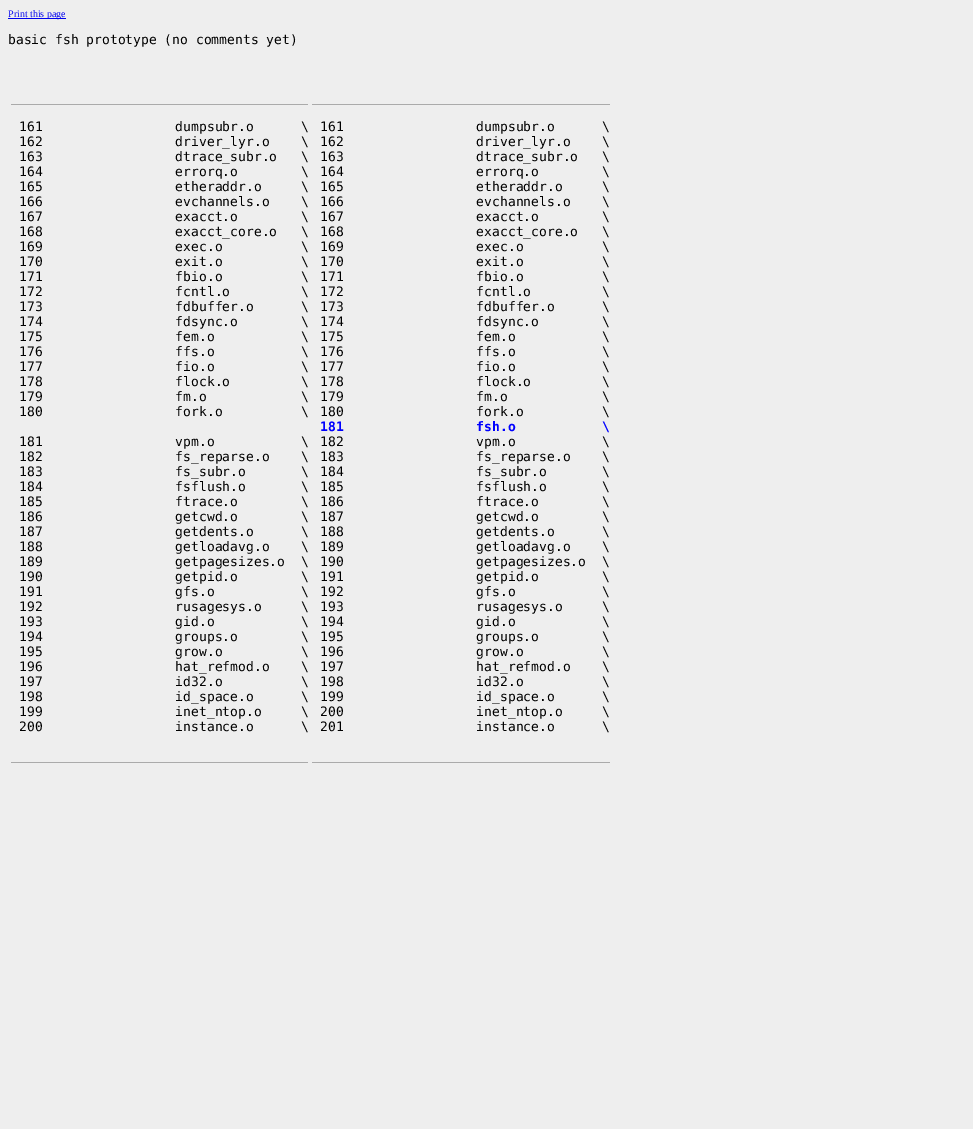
%!PS
<< /PageSize [973 1129] >> setpagedevice
/rgb { 3 { 255 div 3 1 roll } repeat setrgbcolor } def
/font { [ exch dup neg 0 0 3 -1 roll 0 0 ] selectfont } def
/text { moveto show } def
0 1129 translate 1 -1 scale
4 setmiterlimit
238 238 238 rgb
0 0 973 1129 rectfill
0 0 238 rgb
8 18 58 1 rectfill
170 170 170 rgb
11 104 297 1 rectfill
11 762 297 1 rectfill
312 104 298 1 rectfill
312 762 298 1 rectfill
/LiberationSerif-Regular 10 font
0 0 238 rgb
(Print this page) 8 17 text
/DejaVuSansMono-Regular 13 font
0 0 0 rgb
(basic fsh prototype \(no comments yet\)) 8 44 text
(161                 dumpsubr.o      \\) 19 131 text
(162                 driver_lyr.o    \\) 19 146 text
(163                 dtrace_subr.o   \\) 19 161 text
(164                 errorq.o        \\) 19 176 text
(165                 etheraddr.o     \\) 19 191 text
(166                 evchannels.o    \\) 19 206 text
(167                 exacct.o        \\) 19 221 text
(168                 exacct_core.o   \\) 19 236 text
(169                 exec.o          \\) 19 251 text
(170                 exit.o          \\) 19 266 text
(171                 fbio.o          \\) 19 281 text
(172                 fcntl.o         \\) 19 296 text
(173                 fdbuffer.o      \\) 19 311 text
(174                 fdsync.o        \\) 19 326 text
(175                 fem.o           \\) 19 341 text
(176                 ffs.o           \\) 19 356 text
(177                 fio.o           \\) 19 371 text
(178                 flock.o         \\) 19 386 text
(179                 fm.o            \\) 19 401 text
(180                 fork.o          \\) 19 416 text
(181                 vpm.o           \\) 19 446 text
(182                 fs_reparse.o    \\) 19 461 text
(183                 fs_subr.o       \\) 19 476 text
(184                 fsflush.o       \\) 19 491 text
(185                 ftrace.o        \\) 19 506 text
(186                 getcwd.o        \\) 19 521 text
(187                 getdents.o      \\) 19 536 text
(188                 getloadavg.o    \\) 19 551 text
(189                 getpagesizes.o  \\) 19 566 text
(190                 getpid.o        \\) 19 581 text
(191                 gfs.o           \\) 19 596 text
(192                 rusagesys.o     \\) 19 611 text
(193                 gid.o           \\) 19 626 text
(194                 groups.o        \\) 19 641 text
(195                 grow.o          \\) 19 656 text
(196                 hat_refmod.o    \\) 19 671 text
(197                 id32.o          \\) 19 686 text
(198                 id_space.o      \\) 19 701 text
(199                 inet_ntop.o     \\) 19 716 text
(200                 instance.o      \\) 19 731 text
(161                 dumpsubr.o      \\) 320 131 text
(162                 driver_lyr.o    \\) 320 146 text
(163                 dtrace_subr.o   \\) 320 161 text
(164                 errorq.o        \\) 320 176 text
(165                 etheraddr.o     \\) 320 191 text
(166                 evchannels.o    \\) 320 206 text
(167                 exacct.o        \\) 320 221 text
(168                 exacct_core.o   \\) 320 236 text
(169                 exec.o          \\) 320 251 text
(170                 exit.o          \\) 320 266 text
(171                 fbio.o          \\) 320 281 text
(172                 fcntl.o         \\) 320 296 text
(173                 fdbuffer.o      \\) 320 311 text
(174                 fdsync.o        \\) 320 326 text
(175                 fem.o           \\) 320 341 text
(176                 ffs.o           \\) 320 356 text
(177                 fio.o           \\) 320 371 text
(178                 flock.o         \\) 320 386 text
(179                 fm.o            \\) 320 401 text
(180                 fork.o          \\) 320 416 text
/DejaVuSansMono-Bold 13 font
0 0 255 rgb
(181                 fsh.o           \\) 320 431 text
/DejaVuSansMono-Regular 13 font
0 0 0 rgb
(182                 vpm.o           \\) 320 446 text
(183                 fs_reparse.o    \\) 320 461 text
(184                 fs_subr.o       \\) 320 476 text
(185                 fsflush.o       \\) 320 491 text
(186                 ftrace.o        \\) 320 506 text
(187                 getcwd.o        \\) 320 521 text
(188                 getdents.o      \\) 320 536 text
(189                 getloadavg.o    \\) 320 551 text
(190                 getpagesizes.o  \\) 320 566 text
(191                 getpid.o        \\) 320 581 text
(192                 gfs.o           \\) 320 596 text
(193                 rusagesys.o     \\) 320 611 text
(194                 gid.o           \\) 320 626 text
(195                 groups.o        \\) 320 641 text
(196                 grow.o          \\) 320 656 text
(197                 hat_refmod.o    \\) 320 671 text
(198                 id32.o          \\) 320 686 text
(199                 id_space.o      \\) 320 701 text
(200                 inet_ntop.o     \\) 320 716 text
(201                 instance.o      \\) 320 731 text
showpage
